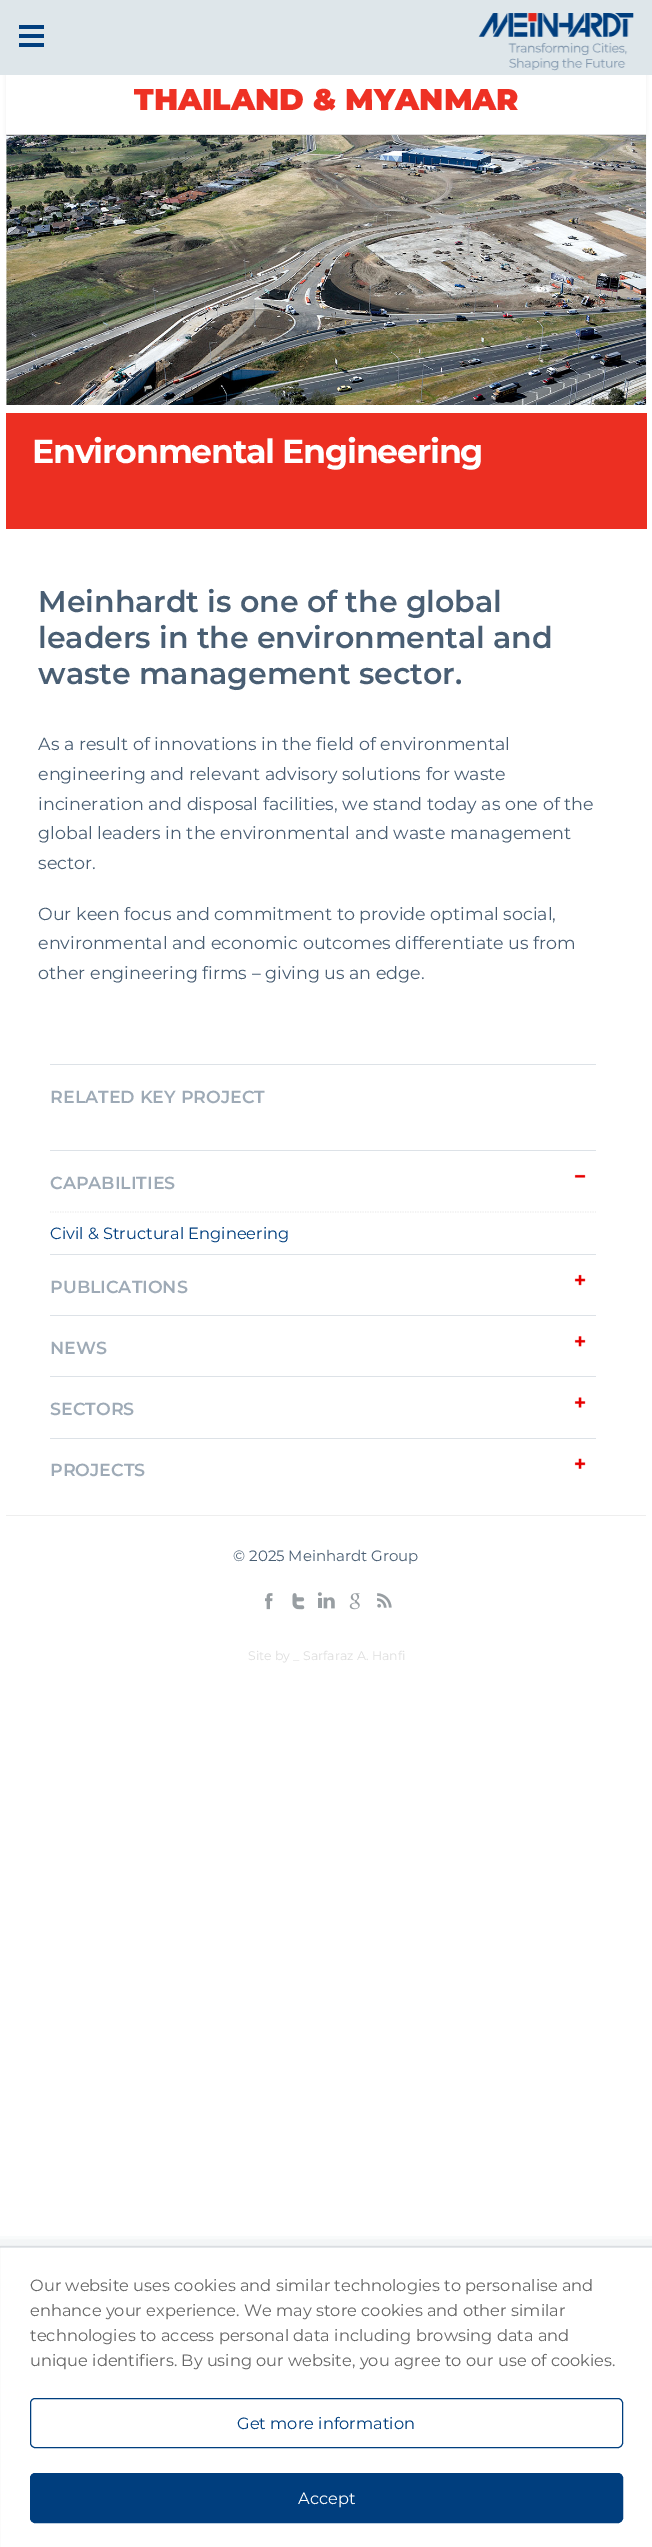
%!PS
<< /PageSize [652 2547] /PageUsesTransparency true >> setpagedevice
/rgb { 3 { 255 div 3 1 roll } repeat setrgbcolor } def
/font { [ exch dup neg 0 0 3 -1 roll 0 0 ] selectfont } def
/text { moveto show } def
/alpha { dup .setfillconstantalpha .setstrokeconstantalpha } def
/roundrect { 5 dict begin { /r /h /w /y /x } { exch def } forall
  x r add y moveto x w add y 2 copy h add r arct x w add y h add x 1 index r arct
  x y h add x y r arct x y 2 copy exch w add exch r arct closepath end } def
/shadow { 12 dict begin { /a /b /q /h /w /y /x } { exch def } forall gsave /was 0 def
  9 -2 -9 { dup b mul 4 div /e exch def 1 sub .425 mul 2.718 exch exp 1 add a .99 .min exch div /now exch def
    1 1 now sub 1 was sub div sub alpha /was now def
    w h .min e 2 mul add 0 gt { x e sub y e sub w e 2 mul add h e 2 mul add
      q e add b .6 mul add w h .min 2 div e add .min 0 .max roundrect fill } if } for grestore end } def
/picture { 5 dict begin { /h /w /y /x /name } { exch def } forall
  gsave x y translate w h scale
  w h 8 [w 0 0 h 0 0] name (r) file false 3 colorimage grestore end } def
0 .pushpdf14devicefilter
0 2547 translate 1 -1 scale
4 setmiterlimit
255 255 255 rgb
0 0 652 2547 rectfill
gsave
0 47 moveto 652 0 rlineto 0 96 rlineto -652 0 rlineto closepath 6 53 moveto 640 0 rlineto 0 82 rlineto -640 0 rlineto closepath eoclip newpath
238 238 238 rgb
6 54 640 82 0 2 1 shadow
grestore
222 230 234 rgb
0 0 652 75 rectfill
0 62 126 rgb
19 25 25 4 rectfill
19 34 25 4 rectfill
19 43 25 4 rectfill
221 221 221 rgb
6 134 640 1 rectfill
(img_01.rgb) 478 13 156 58 picture
(img_02.rgb) 6 135 641 270 picture
236 47 34 rgb
6 413 641 116 rectfill
221 226 231 rgb
50 1064 546 1 rectfill
(img_03.rgb) 574 1174 12 4 picture
50 1150 546 1 rectfill
238 238 238 rgb
1.2 setlinewidth
[1.25 1.25] 0 setdash
50 1212 moveto 546 0 rlineto stroke
(img_04.rgb) 574 1274 12 12 picture
221 226 231 rgb
50 1254 546 1 rectfill
(img_05.rgb) 574 1336 12 11 picture
50 1315 546 1 rectfill
(img_06.rgb) 574 1397 12 11 picture
50 1376 546 1 rectfill
(img_07.rgb) 574 1458 12 11 picture
50 1438 546 1 rectfill
238 238 238 rgb
6 1515 640 1 rectfill
(img_08.rgb) 265 1593 8 17 picture
(img_09.rgb) 292 1593 13 17 picture
(img_10.rgb) 317 1592 18 17 picture
(img_11.rgb) 349 1593 11 17 picture
(img_12.rgb) 377 1593 15 15 picture
gsave
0 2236 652 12 rectclip
36 47 66 rgb
-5 2255 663 285 0 12.5 0.31 shadow
grestore
0.08 alpha
36 47 66 rgb
1 setlinewidth
[] 0 setdash
-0.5 2246.5 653 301 rectstroke
1 alpha
0 62 126 rgb
30.5 2398.5 592 49 4.5 roundrect stroke
30.5 2473.5 592 49 4.5 roundrect gsave fill grestore
stroke
/Montserrat-Black 30 font
238 49 36 rgb
(THAILAND & MYANMAR) 134 110 text
/Montserrat-Bold 33.25 font
255 255 255 rgb
32 463 moveto -1.25 0 (Environmental Engineering) ashow
/Montserrat-SemiBold 30 font
73 94 115 rgb
(Meinhardt is one of the global) 38 612 text
(leaders in the environmental and) 38 648 text
(waste management sector.) 38 684 text
/Montserrat-Regular 17.5 font
(As a result of innovations in the field of environmental) 38 750 text
(engineering and relevant advisory solutions for waste) 38 780 text
(incineration and disposal facilities, we stand today as one of the) 38 810 text
(global leaders in the environmental and waste management) 38 839 text
(sector.) 38 869 text
(Our keen focus and commitment to provide optimal social,) 38 920 text
(environmental and economic outcomes differentiate us from) 38 949 text
(other engineering firms – giving us an edge.) 38 979 text
/Montserrat-SemiBold 17.5 font
158 170 182 rgb
(RELATED KEY PROJECT) 50 1103 text
(CAPABILITIES) 50 1189 text
/Montserrat-Regular 16.25 font
0 62 126 rgb
(Civil & Structural Engineering) 50 1239 text
/Montserrat-SemiBold 17.5 font
158 170 182 rgb
(PUBLICATIONS) 50 1293 text
(NEWS) 50 1354 text
(SECTORS) 50 1415 text
(PROJECTS) 50 1476 text
/Montserrat-Regular 15 font
73 94 115 rgb
(© 2025 Meinhardt Group) 233 1561 text
/Montserrat-Regular 12.5 font
221 221 221 rgb
(Site by _ Sarfaraz A. Hanfi) 248 1660 text
/Montserrat-Regular 16.25 font
102 102 102 rgb
(Our website uses cookies and similar technologies to personalise and) 30 2291 text
(enhance your experience. We may store cookies and other similar) 30 2316 text
(technologies to access personal data including browsing data and) 30 2341 text
(unique identifiers. By using our website, you agree to our use of cookies.) 30 2366 text
0 62 126 rgb
(Get more information) 237 2429 text
255 255 255 rgb
(Accept) 298 2504 text
.poppdf14devicefilter showpage
